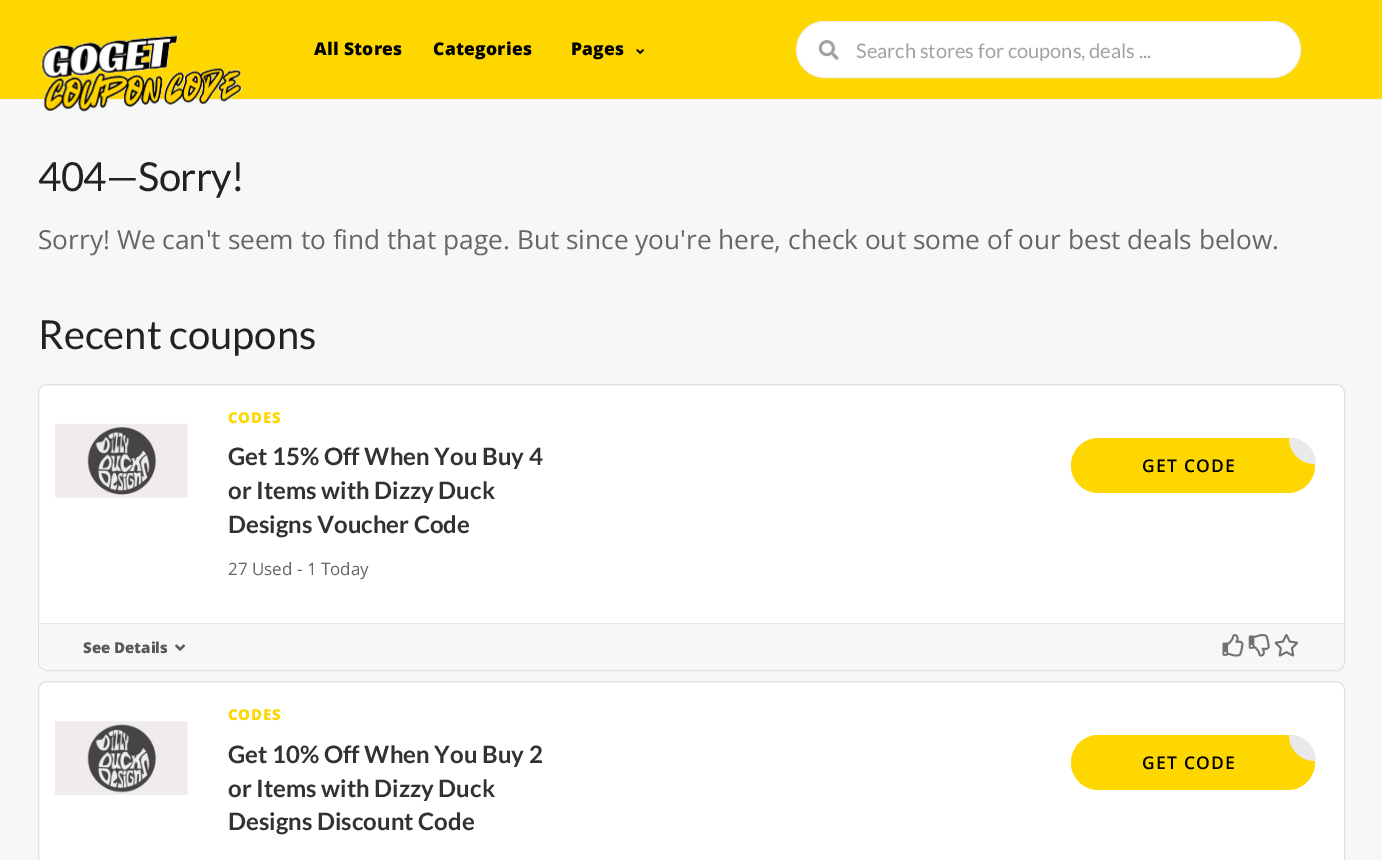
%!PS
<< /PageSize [1382 860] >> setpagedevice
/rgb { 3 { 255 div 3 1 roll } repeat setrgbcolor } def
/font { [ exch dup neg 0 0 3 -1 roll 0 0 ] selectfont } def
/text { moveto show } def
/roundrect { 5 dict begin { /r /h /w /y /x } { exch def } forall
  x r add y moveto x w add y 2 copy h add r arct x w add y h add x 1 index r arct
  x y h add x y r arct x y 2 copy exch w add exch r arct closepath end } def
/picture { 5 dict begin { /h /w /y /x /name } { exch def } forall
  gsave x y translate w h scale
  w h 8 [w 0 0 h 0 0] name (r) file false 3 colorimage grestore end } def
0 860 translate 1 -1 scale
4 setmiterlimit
247 247 247 rgb
0 0 1382 860 rectfill
254 215 0 rgb
0 0 1382 99 rectfill
242 242 242 rgb
0 99 1382 1 rectfill
(img_01.rgb) 41 35 201 77 picture
(img_02.rgb) 636 49 8 5 picture
255 255 255 rgb
796.5 21.5 504 56 28 roundrect gsave fill grestore
242 242 242 rgb
stroke
(img_03.rgb) 818 40 21 20 picture
255 255 255 rgb
38.5 384.5 1306 286 8.5 roundrect gsave fill grestore
224 224 224 rgb
stroke
(img_04.rgb) 55 423 133 75 picture
241 241 241 rgb
1290 438 moveto 14.5 0 26 11.5 26 26 rcurveto -14.5 0 -26 -11.5 -26 -26 rcurveto closepath fill
254 215 0 rgb
1071 438 244 55 27.5 roundrect fill
233 233 233 rgb
1289 438 moveto 14.5 0 26 11.5 26 26 rcurveto -14.5 0 -26 -11.5 -26 -26 rcurveto closepath fill
247 247 247 rgb
39 623 moveto 1305 0 rlineto 0 38 rlineto 0 5 -4 9 -9 9 rcurveto -1287 0 rlineto -5 0 -9 -4 -9 -9 rcurveto closepath fill
233 233 233 rgb
39 623 1305 1 rectfill
(img_05.rgb) 175 644 11 7 picture
(img_06.rgb) 1222 634 22 23 picture
(img_07.rgb) 1248 634 22 23 picture
(img_08.rgb) 1274 634 25 23 picture
255 255 255 rgb
38.5 681.5 1306 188 8.5 roundrect gsave fill grestore
224 224 224 rgb
stroke
(img_09.rgb) 55 721 133 74 picture
241 241 241 rgb
1290 735 moveto 14.5 0 26 11.5 26 26 rcurveto -14.5 0 -26 -11.5 -26 -26 rcurveto closepath fill
254 215 0 rgb
1071 735 244 55 27.5 roundrect fill
233 233 233 rgb
1289 735 moveto 14.5 0 26 11.5 26 26 rcurveto -14.5 0 -26 -11.5 -26 -26 rcurveto closepath fill
/OpenSans-ExtraBold 17.5 font
0 0 0 rgb
314 55 moveto 0.25 0 (All Stores) ashow
433 55 moveto 0.25 0 (Categories) ashow
571 55 moveto 0.25 0 (Pages) ashow
gsave
810 38 478 23 rectclip
/Lato-Regular 20 font
162 162 162 rgb
(Search stores for coupons, deals ...) 856 58 text
grestore
/Lato-Regular 40 font
34 34 34 rgb
38 191 moveto -0.6 0 (404—Sorry!) ashow
/OpenSans-Regular 26.25 font
102 102 102 rgb
(Sorry! We can't seem to find that page. But since you're here, check out some of our best deals below.) 38 249 text
/Lato-Regular 40 font
34 34 34 rgb
(Recent coupons) 38 349 text
/OpenSans-ExtraBold 15 font
254 215 0 rgb
228 423 moveto 0.75 0 (CODES) ashow
/Lato-Bold 24 font
50 50 50 rgb
(Get 15% Off When You Buy 4) 228 465 text
(or Items with Dizzy Duck) 228 499 text
(Designs Voucher Code) 228 533 text
/OpenSans-Regular 17 font
102 102 102 rgb
(27 Used - 1 Today) 228 575 text
/OpenSans-SemiBold 17.5 font
0 0 0 rgb
1142 472 moveto 1.25 0 (GET CODE) ashow
/OpenSans-ExtraBold 15 font
89 89 89 rgb
(See Details) 83 653 text
254 215 0 rgb
228 720 moveto 0.75 0 (CODES) ashow
/Lato-Bold 24 font
50 50 50 rgb
(Get 10% Off When You Buy 2) 228 763 text
(or Items with Dizzy Duck) 228 797 text
(Designs Discount Code) 228 830 text
/OpenSans-SemiBold 17.5 font
0 0 0 rgb
1142 769 moveto 1.25 0 (GET CODE) ashow
showpage
